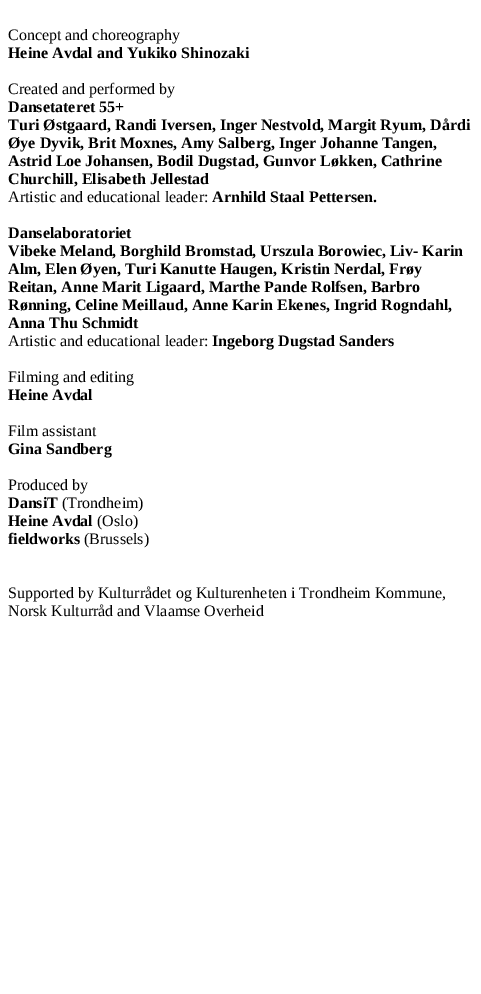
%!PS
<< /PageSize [481 994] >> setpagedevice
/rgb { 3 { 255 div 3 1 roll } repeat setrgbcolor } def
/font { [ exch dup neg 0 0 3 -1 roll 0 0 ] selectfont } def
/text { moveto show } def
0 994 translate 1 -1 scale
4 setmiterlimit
255 255 255 rgb
0 0 481 994 rectfill
/LiberationSerif-Regular 16 font
0 0 0 rgb
(Concept and choreography) 8 40 text
/LiberationSerif-Bold 16 font
(Heine Avdal and Yukiko Shinozaki) 8 58 text
/LiberationSerif-Regular 16 font
(Created and performed by) 8 94 text
/LiberationSerif-Bold 16 font
(Dansetateret 55+) 8 112 text
(Turi Østgaard, Randi Iversen, Inger Nestvold, Margit Ryum, Dårdi) 8 130 text
(Øye Dyvik, Brit Moxnes, Amy Salberg, Inger Johanne Tangen,) 8 148 text
(Astrid Loe Johansen, Bodil Dugstad, Gunvor Løkken, Cathrine) 8 166 text
(Churchill, Elisabeth Jellestad) 8 184 text
/LiberationSerif-Regular 16 font
(Artistic and educational leader:) 8 202 text
/LiberationSerif-Bold 16 font
(Arnhild Staal Pettersen.) 212 202 text
(Danselaboratoriet) 8 238 text
(Vibeke Meland, Borghild Bromstad, Urszula Borowiec, Liv- Karin) 8 256 text
(Alm, Elen Øyen, Turi Kanutte Haugen, Kristin Nerdal, Frøy) 8 274 text
(Reitan, Anne Marit Ligaard, Marthe Pande Rolfsen, Barbro) 8 292 text
(Rønning, Celine Meillaud, Anne Karin Ekenes, Ingrid Rogndahl,) 8 310 text
(Anna Thu Schmidt) 8 328 text
/LiberationSerif-Regular 16 font
(Artistic and educational leader:) 8 346 text
/LiberationSerif-Bold 16 font
(Ingeborg Dugstad Sanders) 212 346 text
/LiberationSerif-Regular 16 font
(Filming and editing) 8 382 text
/LiberationSerif-Bold 16 font
(Heine Avdal) 8 400 text
/LiberationSerif-Regular 16 font
(Film assistant) 8 436 text
/LiberationSerif-Bold 16 font
(Gina Sandberg) 8 454 text
/LiberationSerif-Regular 16 font
(Produced by) 8 490 text
/LiberationSerif-Bold 16 font
(DansiT) 8 508 text
/LiberationSerif-Regular 16 font
(\(Trondheim\)) 62 508 text
/LiberationSerif-Bold 16 font
(Heine Avdal) 8 526 text
/LiberationSerif-Regular 16 font
(\(Oslo\)) 97 526 text
/LiberationSerif-Bold 16 font
(fieldworks) 8 544 text
/LiberationSerif-Regular 16 font
(\(Brussels\)) 84 544 text
(Supported by Kulturrådet og Kulturenheten i Trondheim Kommune,) 8 598 text
(Norsk Kulturråd and Vlaamse Overheid) 8 616 text
showpage
